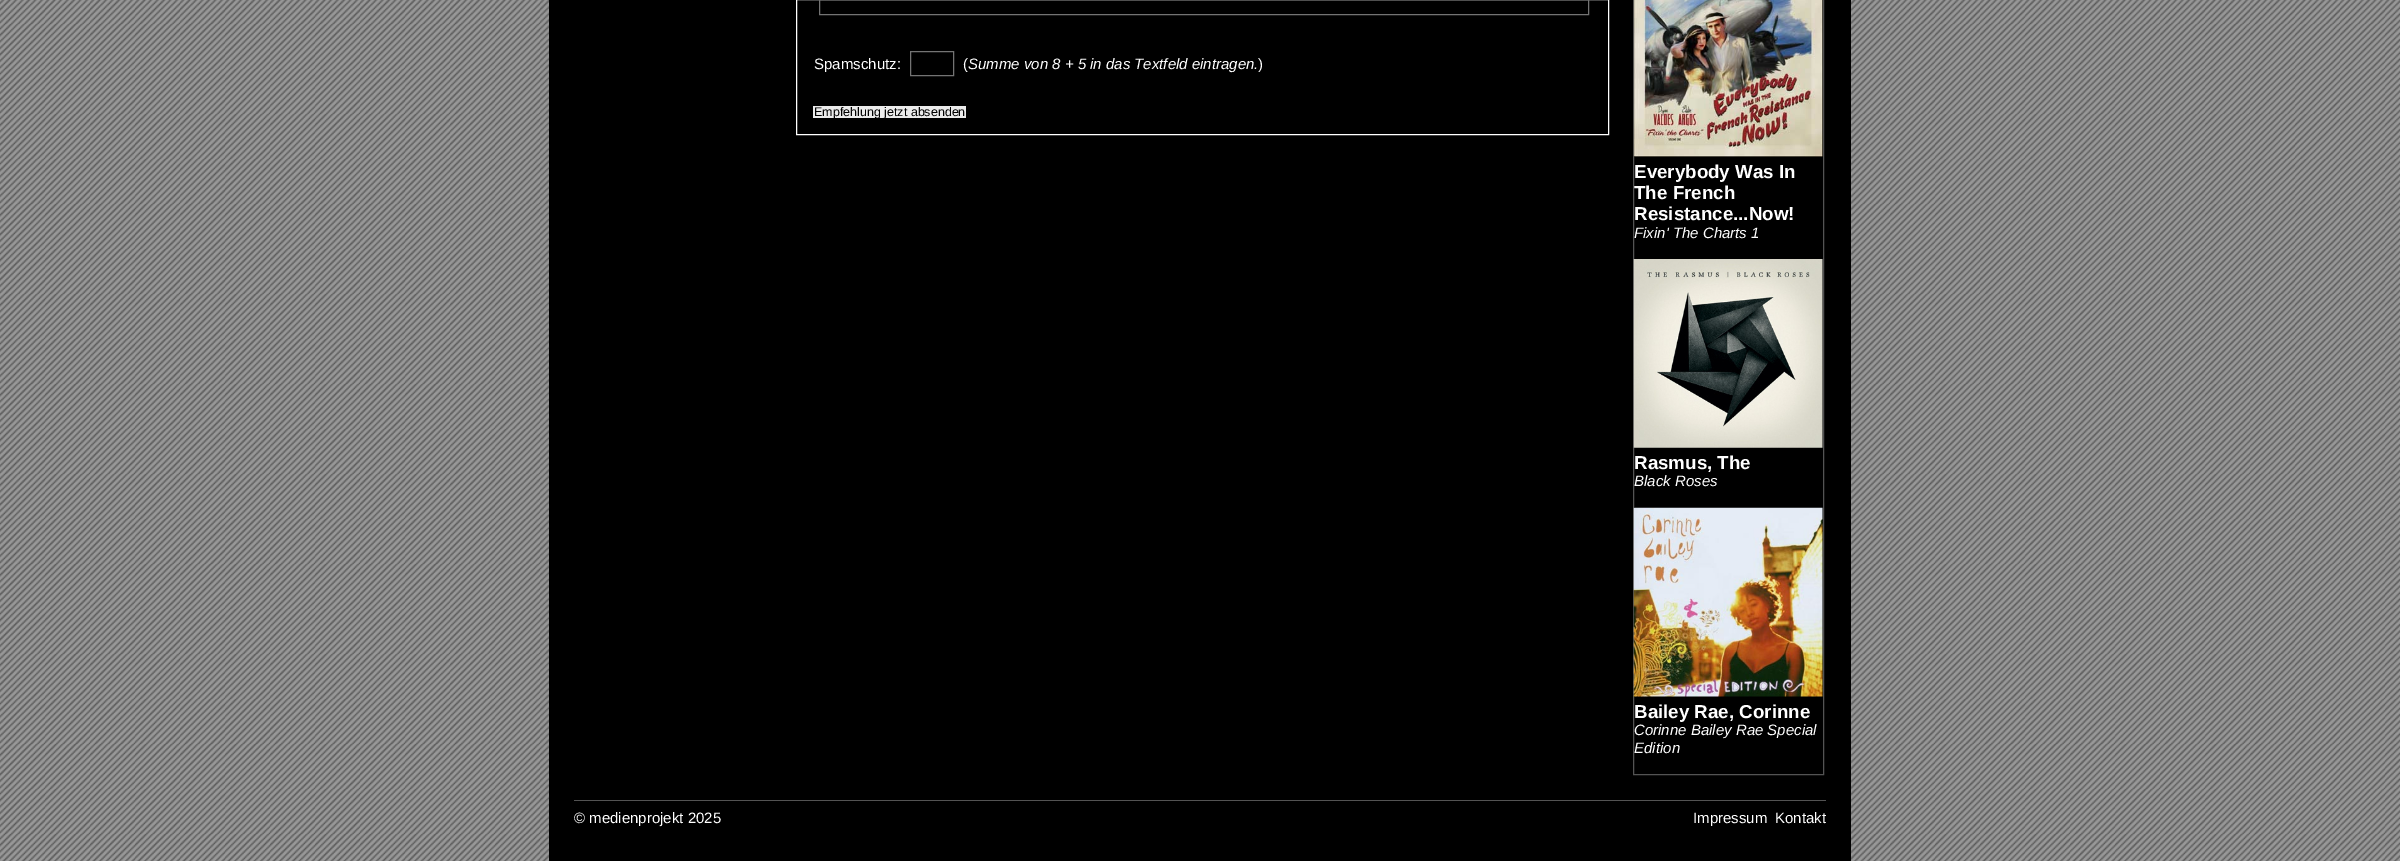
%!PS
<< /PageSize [2400 861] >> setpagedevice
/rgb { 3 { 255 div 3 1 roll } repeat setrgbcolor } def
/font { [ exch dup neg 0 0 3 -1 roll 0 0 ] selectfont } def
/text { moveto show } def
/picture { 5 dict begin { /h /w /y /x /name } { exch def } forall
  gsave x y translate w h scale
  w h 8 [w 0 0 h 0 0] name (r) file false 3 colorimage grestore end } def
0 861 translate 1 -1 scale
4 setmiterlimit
255 255 255 rgb
0 0 2400 861 rectfill
(img_01.rgb) 0 0 2400 861 picture
0 0 0 rgb
549 0 1302 861 rectfill
255 255 255 rgb
796.5 -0.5 812 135 rectstroke
115 115 115 rgb
819.5 -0.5 769 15 rectstroke
910.5 51.5 43 24 rectstroke
235 235 235 rgb
813 106 153 12 rectfill
83 83 83 rgb
1633.5 -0.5 190 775 rectstroke
(img_02.rgb) 1633 0 190 157 picture
(img_03.rgb) 1633 259 190 189 picture
(img_04.rgb) 1633 507 190 190 picture
574 800 1252 1 rectfill
/LiberationSans-Regular 15 font
255 255 255 rgb
(Spamschutz:) 814 69 text
(\() 963 69 text
/LiberationSans-Italic 15 font
(Summe von 8 + 5 in das Textfeld eintragen.) 968 69 text
/LiberationSans-Regular 15 font
(\)) 1258 69 text
/LiberationSans-Regular 12.5 font
0 0 0 rgb
(Empfehlung jetzt absenden) 814 116 text
/LiberationSans-Bold 18.75 font
255 255 255 rgb
(Everybody Was In) 1634 178 text
(The French) 1634 199 text
(Resistance...Now!) 1634 220 text
/LiberationSans-Italic 15 font
(Fixin' The Charts 1) 1634 238 text
/LiberationSans-Bold 18.75 font
(Rasmus, The) 1634 469 text
/LiberationSans-Italic 15 font
(Black Roses) 1634 486 text
/LiberationSans-Bold 18.75 font
(Bailey Rae, Corinne) 1634 718 text
/LiberationSans-Italic 15 font
(Corinne Bailey Rae Special) 1634 735 text
(Edition) 1634 753 text
/LiberationSans-Regular 15 font
(© medienprojekt 2025) 574 823 text
(Impressum) 1693 823 text
(Kontakt) 1775 823 text
showpage
